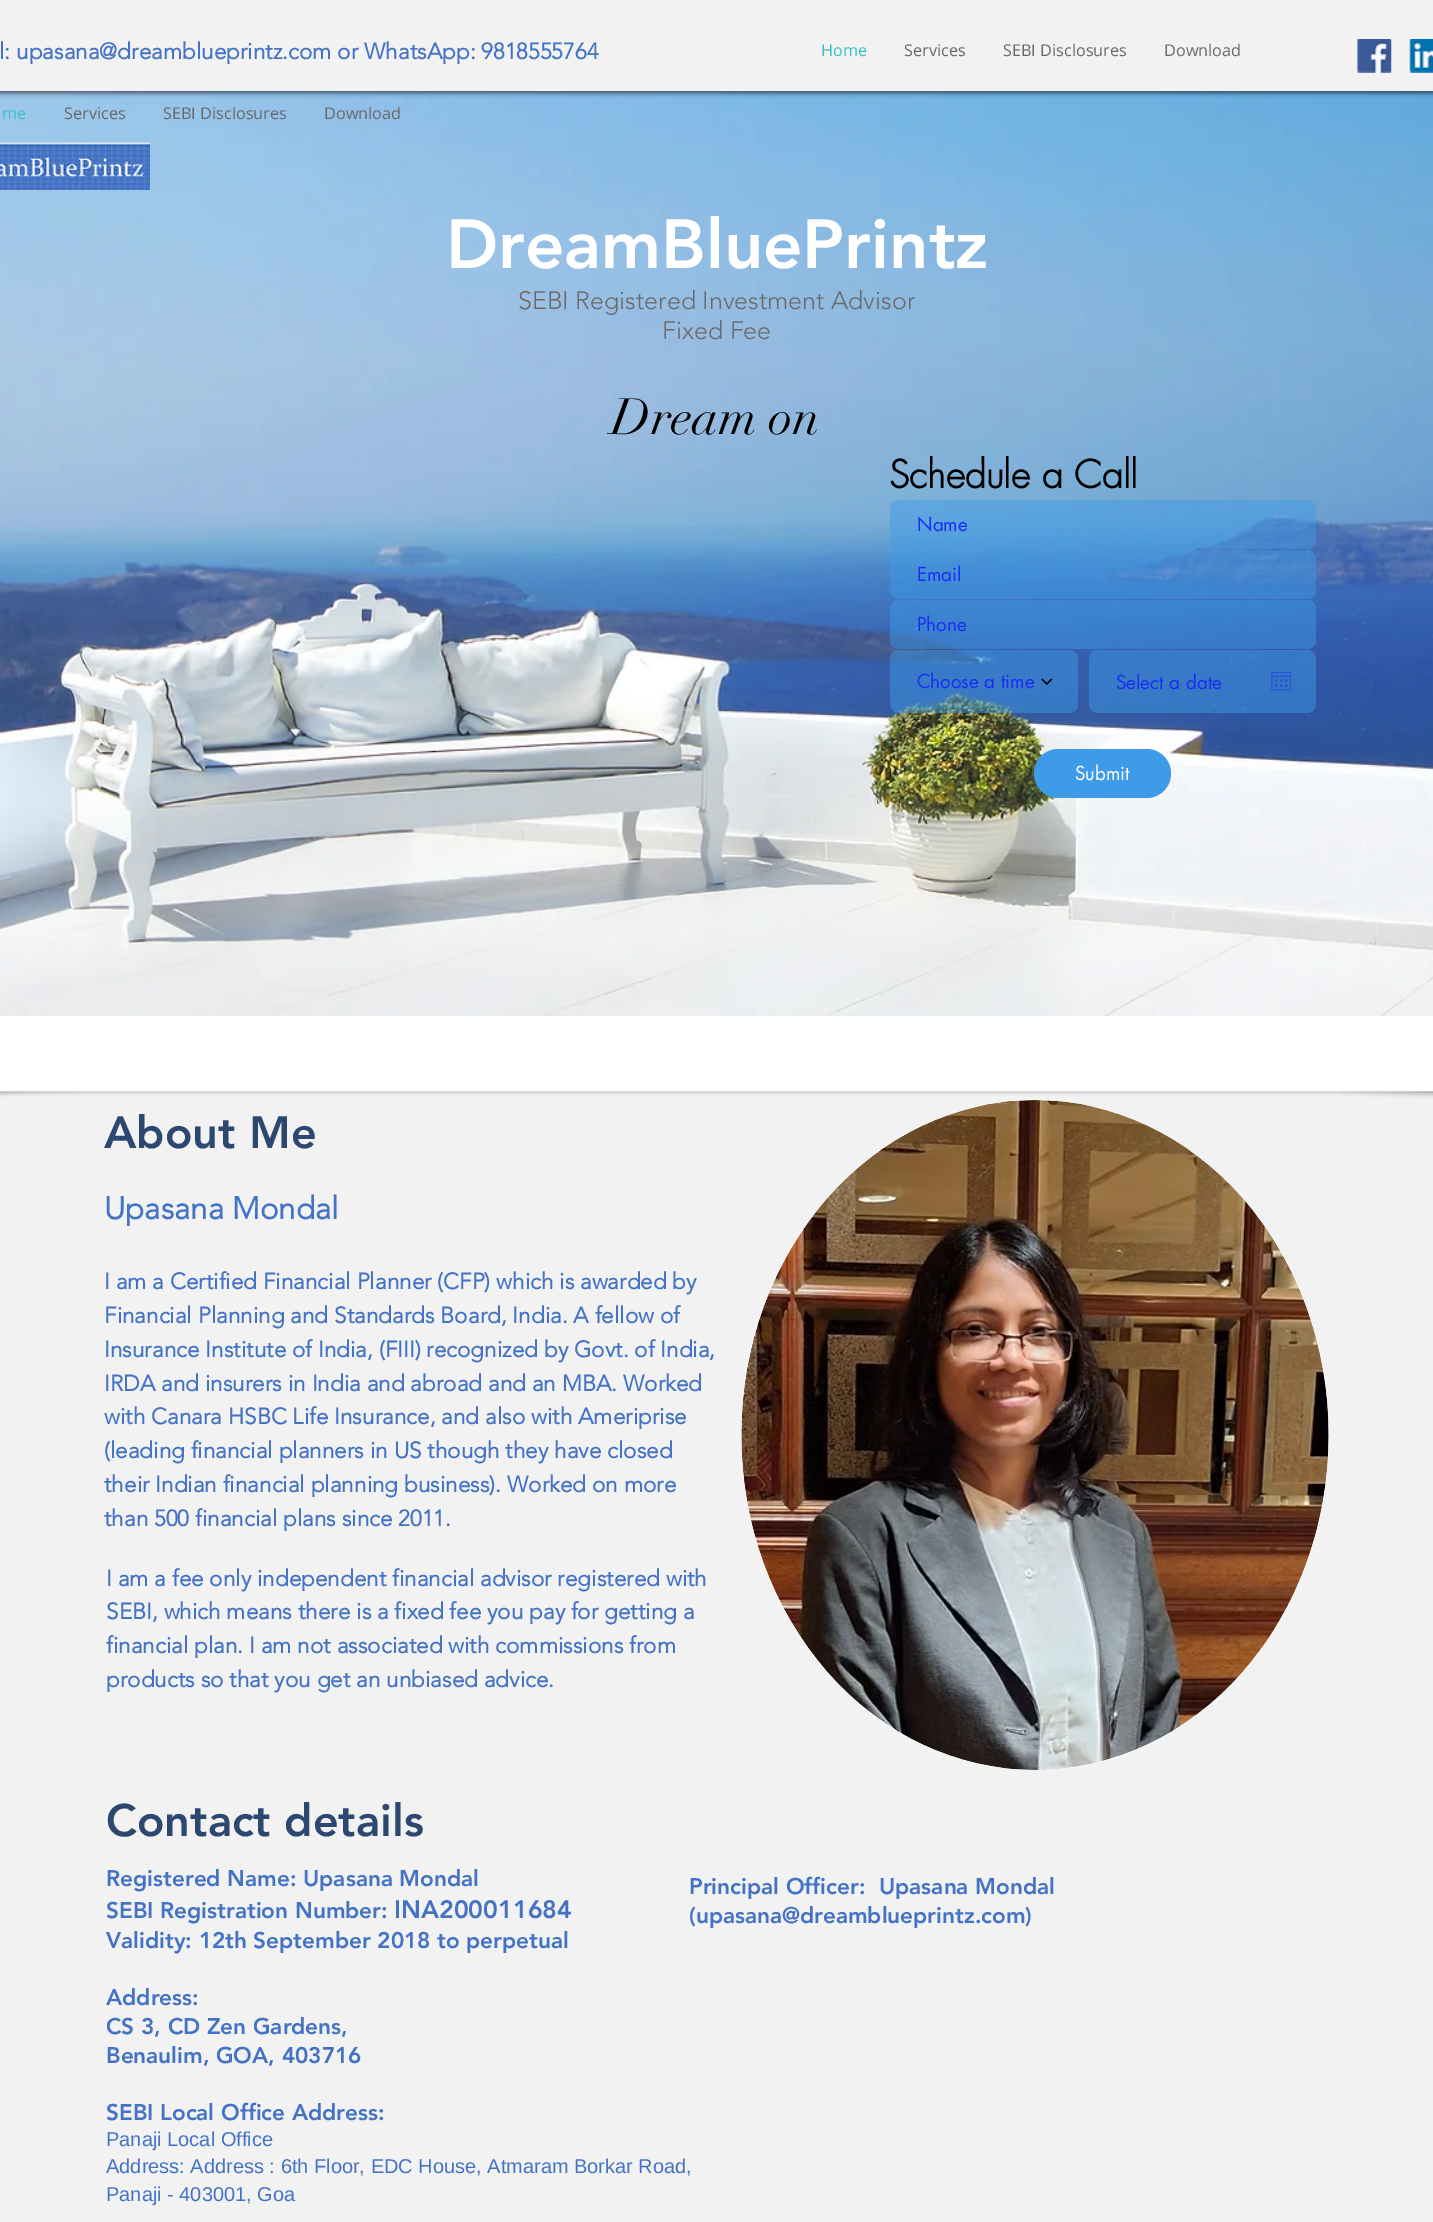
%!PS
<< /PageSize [1433 2222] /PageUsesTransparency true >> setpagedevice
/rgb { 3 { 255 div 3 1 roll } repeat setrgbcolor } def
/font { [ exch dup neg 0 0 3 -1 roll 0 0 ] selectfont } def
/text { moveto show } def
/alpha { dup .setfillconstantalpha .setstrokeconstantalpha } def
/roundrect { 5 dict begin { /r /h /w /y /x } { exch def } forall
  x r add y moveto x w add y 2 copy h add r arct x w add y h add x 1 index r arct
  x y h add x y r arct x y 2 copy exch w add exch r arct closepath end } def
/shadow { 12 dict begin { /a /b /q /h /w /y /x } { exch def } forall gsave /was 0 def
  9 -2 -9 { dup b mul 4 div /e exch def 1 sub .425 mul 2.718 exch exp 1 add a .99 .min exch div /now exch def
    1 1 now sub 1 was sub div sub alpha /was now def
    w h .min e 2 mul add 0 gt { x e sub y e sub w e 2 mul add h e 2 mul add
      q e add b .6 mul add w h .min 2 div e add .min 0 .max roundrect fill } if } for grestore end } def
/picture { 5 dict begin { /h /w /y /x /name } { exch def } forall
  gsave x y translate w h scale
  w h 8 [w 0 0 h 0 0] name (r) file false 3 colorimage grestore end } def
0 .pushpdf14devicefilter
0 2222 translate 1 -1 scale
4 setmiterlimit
242 242 242 rgb
0 0 1433 2222 rectfill
(img_04.rgb) 0 1091 86 6 picture
(img_05.rgb) 1341 1091 92 8 picture
0 0 0 rgb
-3 10 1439 1084 0 1 0.1 shadow
(img_03.rgb) 0 91 1433 925 picture
0 1 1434 92 0 2.5 0.6 shadow
242 242 242 rgb
0 0 1433 91 rectfill
(img_01.rgb) 1357 39 35 34 picture
(img_02.rgb) 1409 39 24 34 picture
255 255 255 rgb
0 1016 1433 75 rectfill
(img_06.rgb) 0 142 150 48 picture
0.47 alpha
61 155 232 rgb
890 500 426 49 9 roundrect fill
890 550 426 49 9 roundrect fill
890 600 426 49 9 roundrect fill
890 650 188 63 9 roundrect fill
1 alpha
(img_07.rgb) 1041 678 12 7 picture
0.47 alpha
1089 650 227 63 9 roundrect fill
1 alpha
(img_08.rgb) 1271 671 20 20 picture
1034 749 137 49 24.5 roundrect fill
255 255 255 rgb
1035 1100 moveto 162.5 0 294 150 294 335 rcurveto 0 185 -131.5 335 -294 335 rcurveto -162.5 0 -294 -150 -294 -335 rcurveto 0 -185 131.5 -335 294 -335 rcurveto closepath fill
(img_09.rgb) 741 1100 588 670 picture
/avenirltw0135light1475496-Bold 22.5 font
68 114 196 rgb
(l: upasana@dreamblueprintz.com or WhatsApp: 9818555764) -1 59 text
/OpenSans-Regular 16.25 font
58 192 199 rgb
(Home) 821 56 text
105 105 105 rgb
(Services) 904 56 text
(SEBI Disclosures) 1003 56 text
(Download) 1164 56 text
58 192 199 rgb
(me) 2 119 text
105 105 105 rgb
(Services) 64 119 text
(SEBI Disclosures) 163 119 text
(Download) 324 119 text
/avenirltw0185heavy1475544-Black 68.75 font
255 255 255 rgb
(DreamBluePrintz) 446 268 text
/avenirltw0135light1475496-Light 25 font
105 105 105 rgb
(SEBI Registered Investment Advisor) 518 309 text
(Fixed Fee) 662 339 text
/didot-Regular 50 font
0 0 0 rgb
(Dream on) 611 434 text
/futura-Bold 37.5 font
(Schedule a Call) 889 488 text
/futura-Regular 18.75 font
26 45 243 rgb
(Name) 917 531 text
(Email) 917 581 text
(Phone) 917 631 text
(Choose a time) 917 688 text
(Select a date) 1116 689 text
255 255 255 rgb
(Submit) 1075 780 text
/avenirltw0185heavy1475544-Black 45 font
45 72 112 rgb
(About Me) 104 1148 text
/avenirltw0135light1475496-Bold 31.25 font
68 114 196 rgb
(Upasana Mondal) 104 1219 text
/avenirltw0135light1475496-Bold 22.5 font
(I am a Certified Financial Planner \(CFP\) which is awarded by) 104 1289 text
(Financial Planning and Standards Board, India. A fellow of) 104 1323 text
(Insurance Institute of India, \(FIII\) recognized by Govt. of India,) 104 1357 text
(IRDA and insurers in India and abroad and an MBA. Worked) 104 1391 text
(with Canara HSBC Life Insurance, and also with Ameriprise) 104 1424 text
(\(leading financial planners in US though they have closed) 104 1458 text
(their Indian financial planning business\). Worked on more) 104 1492 text
(than 500 financial plans since 2011.) 104 1526 text
(I am a fee only independent financial advisor registered with) 106 1586 text
(SEBI, which means there is a fixed fee you pay for getting a) 106 1619 text
(financial plan. I am not associated with commissions from) 106 1653 text
(products so that you get an unbiased advice.) 106 1687 text
/avenirltw0185heavy1475544-Black 45 font
45 72 112 rgb
(Contact details) 106 1836 text
/avenirltw0185heavy1475544-Black 22.5 font
68 114 196 rgb
(Registered Name: Upasana Mondal) 106 1886 text
(SEBI Registration Number:) 106 1918 text
/avenirltw0185heavy1475544-Black 25 font
(INA200011684) 394 1918 text
/avenirltw0185heavy1475544-Black 22.5 font
(Validity: 12th September 2018 to perpetual) 106 1948 text
(Address:) 106 2005 text
(CS 3, CD Zen Gardens,) 106 2034 text
(Benaulim, GOA, 403716) 106 2063 text
(SEBI Local Office Address:) 106 2120 text
/LiberationSans-Regular 20 font
(Panaji Local Office) 106 2146 text
(Address: Address : 6th Floor, EDC House, Atmaram Borkar Road,) 106 2173 text
(Panaji - 403001, Goa) 106 2201 text
/avenirltw0185heavy1475544-Black 22.5 font
(Principal Officer:) 689 1894 text
(Upasana Mondal) 879 1894 text
(\(upasana@dreamblueprintz.com\)) 689 1923 text
.poppdf14devicefilter showpage
